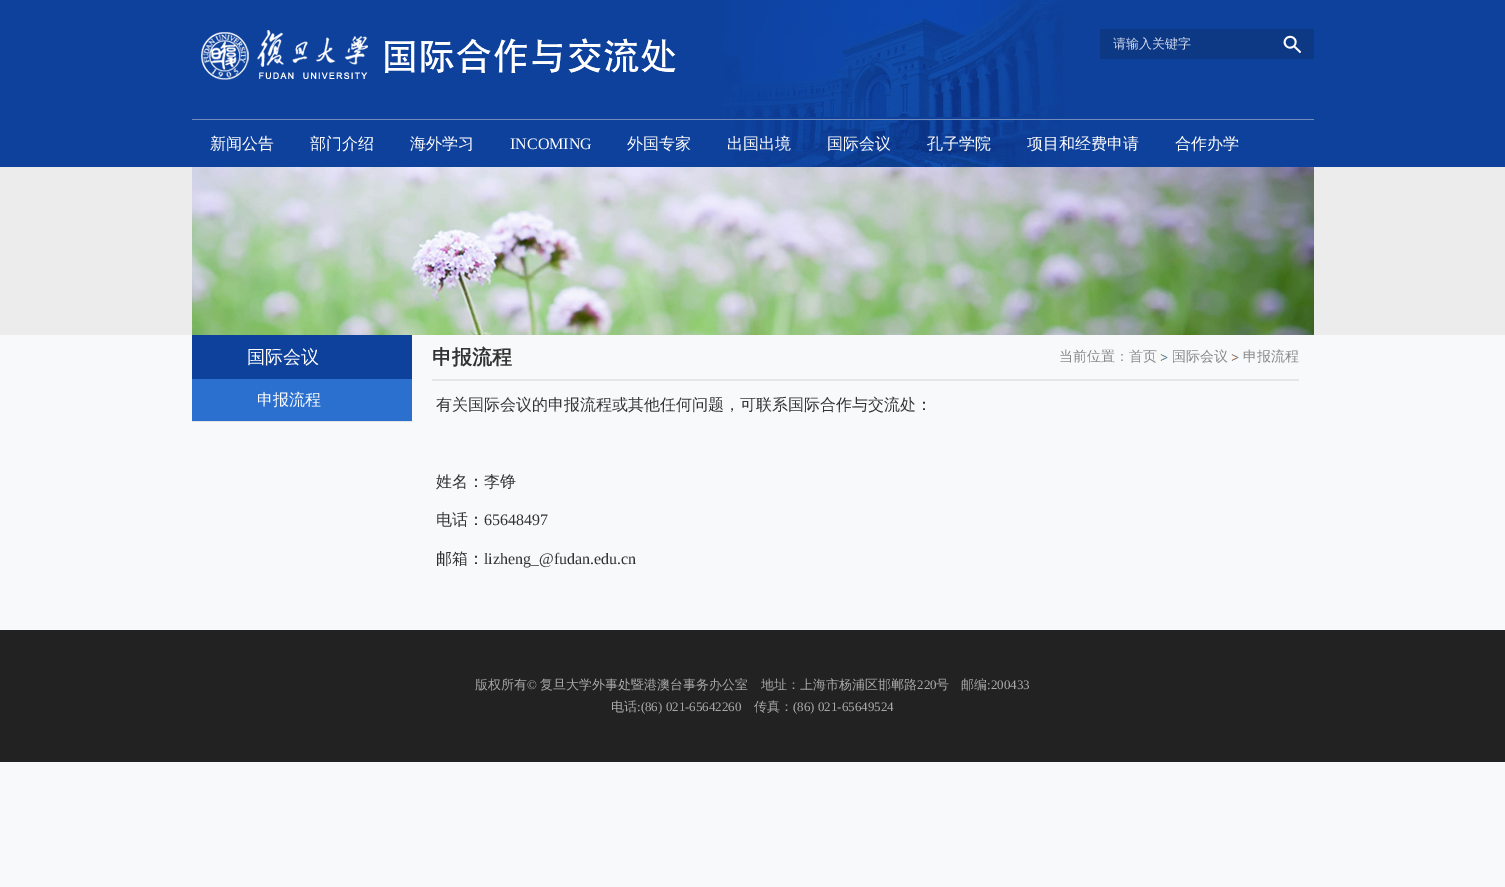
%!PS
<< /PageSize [1505 887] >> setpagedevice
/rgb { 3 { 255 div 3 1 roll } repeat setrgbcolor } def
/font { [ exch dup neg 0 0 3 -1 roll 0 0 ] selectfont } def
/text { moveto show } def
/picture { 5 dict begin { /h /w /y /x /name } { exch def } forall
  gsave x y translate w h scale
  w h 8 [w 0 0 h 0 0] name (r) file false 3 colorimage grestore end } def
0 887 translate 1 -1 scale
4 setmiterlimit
247 249 250 rgb
0 0 1505 887 rectfill
14 65 156 rgb
0 0 1505 167 rectfill
(img_01.rgb) 723 0 340 117 picture
114 140 185 rgb
192 119 1122 1 rectfill
(img_02.rgb) 201 30 475 50 picture
13 56 131 rgb
1100 29 214 30 rectfill
(img_03.rgb) 1283 35 18 18 picture
(img_04.rgb) 733 120 330 47 picture
236 236 236 rgb
0 167 1505 168 rectfill
(img_05.rgb) 192 167 1122 168 picture
14 65 156 rgb
192 335 220 44 rectfill
43 112 206 rgb
192 379 220 42 rectfill
229 229 229 rgb
192 421 220 1 rectfill
432 379 867 2 rectfill
(img_06.rgb) 1160 354 8 7 picture
(img_06.rgb) 1231 354 8 7 picture
34 34 34 rgb
0 630 1505 132 rectfill
/WenQuanYiZenHei-Medium 13 font
205 215 238 rgb
(请输入关键字) 1113 48 text
/WenQuanYiZenHei-Medium 16 font
255 255 255 rgb
(新闻公告) 210 149 text
(部门介绍) 310 149 text
(海外学习) 410 149 text
/LiberationSerif-Regular 16 font
(INCOMING) 510 149 text
/WenQuanYiZenHei-Medium 16 font
(外国专家) 627 149 text
(出国出境) 727 149 text
(国际会议) 827 149 text
(孔子学院) 927 149 text
(项目和经费申请) 1027 149 text
(合作办学) 1175 149 text
/WenQuanYiZenHei-Medium 18 font
(国际会议) 247 363 text
/WenQuanYiZenHei-Medium 16 font
(申报流程) 257 405 text
/WenQuanYiZenHei-Bold 20 font
51 51 51 rgb
(申报流程) 432 364 text
/WenQuanYiZenHei-Medium 14 font
136 136 136 rgb
(当前位置：首页) 1059 361 text
(国际会议) 1172 361 text
(申报流程) 1243 361 text
/WenQuanYiZenHei-Medium 16 font
51 51 51 rgb
(有关国际会议的申报流程或其他任何问题，可联系国际合作与交流处：) 436 410 text
(姓名：李铮) 436 487 text
(电话：) 436 525 text
/LiberationSerif-Regular 16 font
(65648497) 484 525 text
/WenQuanYiZenHei-Medium 16 font
(邮箱：) 436 564 text
/LiberationSerif-Regular 16 font
(lizheng_@fudan.edu.cn) 484 564 text
/WenQuanYiZenHei-Medium 13 font
169 169 169 rgb
(版权所有) 475 689 text
/LiberationSerif-Regular 13 font
(©) 527 689 text
/WenQuanYiZenHei-Medium 13 font
(复旦大学外事处暨港澳台事务办公室) 540 689 text
(地址：上海市杨浦区邯郸路) 761 689 text
/LiberationSerif-Regular 13 font
(220) 917 689 text
/WenQuanYiZenHei-Medium 13 font
(号) 936 689 text
(邮编) 961 689 text
/LiberationSerif-Regular 13 font
(:200433) 987 689 text
/WenQuanYiZenHei-Medium 13 font
(电话) 611 711 text
/LiberationSerif-Regular 13 font
(:\(86\) 021-65642260) 637 711 text
/WenQuanYiZenHei-Medium 13 font
(传真：) 754 711 text
/LiberationSerif-Regular 13 font
(\(86\) 021-65649524) 793 711 text
showpage
